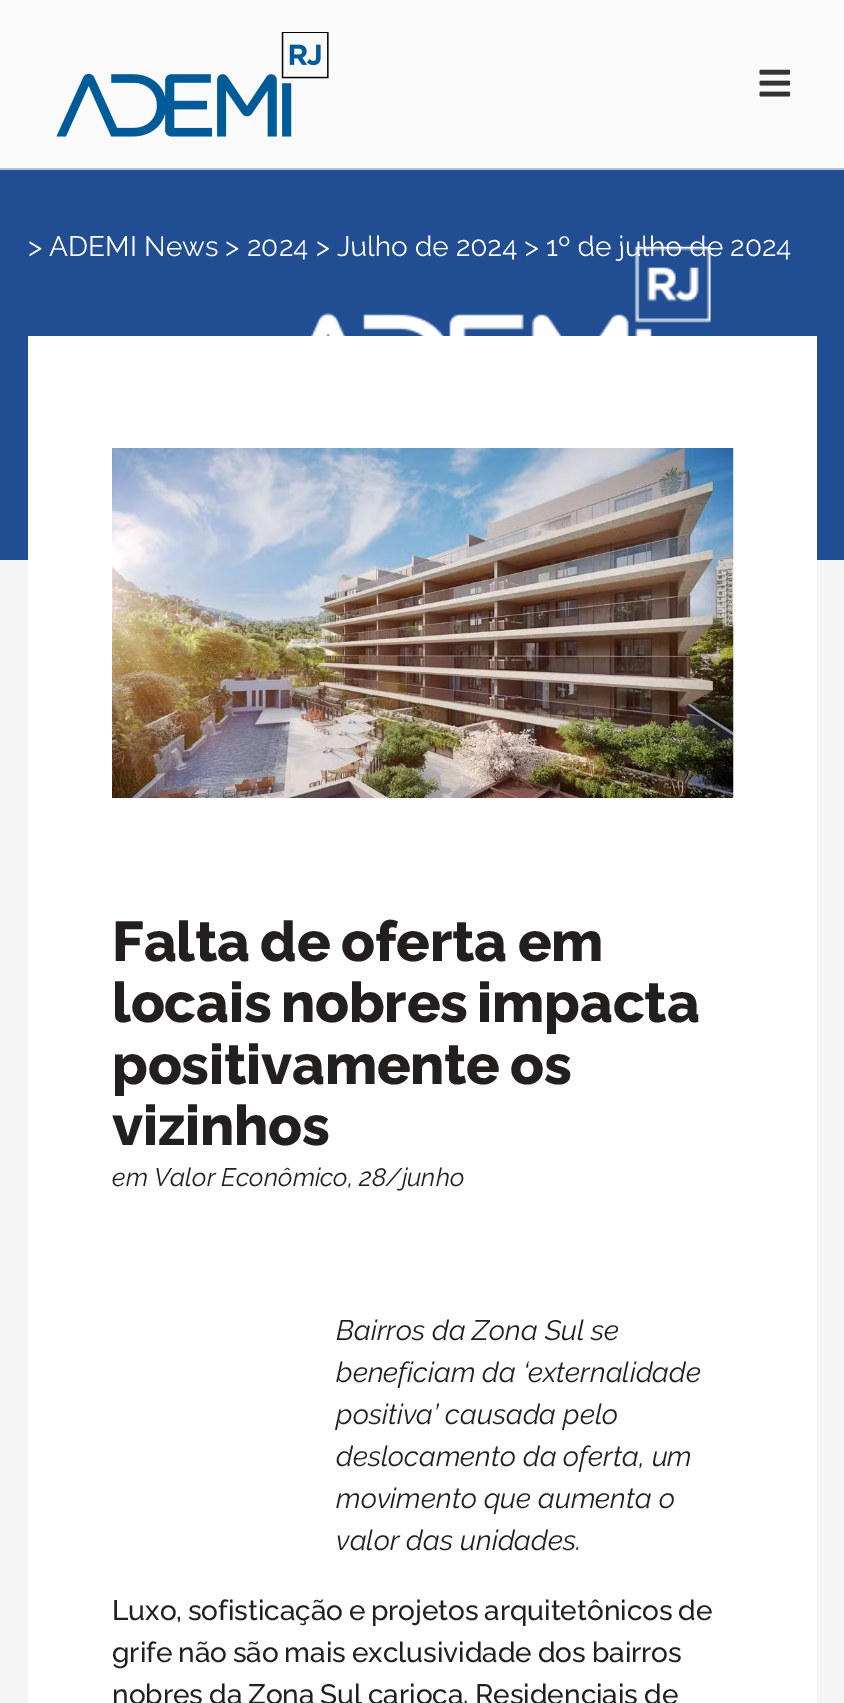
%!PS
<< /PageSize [844 1703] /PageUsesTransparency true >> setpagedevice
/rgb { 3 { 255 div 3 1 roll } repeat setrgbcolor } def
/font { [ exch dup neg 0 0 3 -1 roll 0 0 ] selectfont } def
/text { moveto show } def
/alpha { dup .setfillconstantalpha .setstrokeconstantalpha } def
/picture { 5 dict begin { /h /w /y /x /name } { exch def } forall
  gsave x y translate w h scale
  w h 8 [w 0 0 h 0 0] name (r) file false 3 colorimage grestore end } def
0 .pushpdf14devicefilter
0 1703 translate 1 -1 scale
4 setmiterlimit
245 245 245 rgb
0 0 844 1703 rectfill
0.5 alpha
255 255 255 rgb
0 0 844 168 rectfill
1 alpha
177 193 216 rgb
0 168 844 2 rectfill
(img_01.rgb) 56 32 273 105 picture
(img_02.rgb) 759 69 32 28 picture
33 78 146 rgb
0 170 844 390 rectfill
255 255 255 rgb
28 336 789 1367 rectfill
(img_04.rgb) 112 448 622 350 picture
/Raleway-Regular 28 font
(> ADEMI News > 2024 > Julho de 2024 > 1º de julho de 2024) 28 256 text
(img_03.rgb) 311 246 400 90 picture
/Raleway-ExtraBold 56 font
35 31 30 rgb
112 961 moveto -2 0 32 -0.25 0 (Falta de oferta em) awidthshow
112 1022 moveto -3 0 32 -0.25 0 (locais nobres impacta) awidthshow
112 1084 moveto -3 0 32 -0.25 0 (positivamente os) awidthshow
112 1145 moveto -0.25 0 (vizinhos) ashow
/Raleway-Italic 25.25 font
(em Valor Econômico, 28/junho) 112 1186 text
/Raleway-Italic 28 font
(Bairros da Zona Sul se) 336 1340 text
(beneficiam da ‘externalidade) 336 1382 text
(positiva’ causada pelo) 336 1424 text
(deslocamento da oferta, um) 336 1466 text
(movimento que aumenta o) 336 1508 text
(valor das unidades.) 336 1550 text
/Raleway-Medium 28 font
112 1620 moveto -1.5 0 32 (Luxo, sofisticação e projetos arquitetônicos de) widthshow
112 1662 moveto -1.25 0 32 (grife não são mais exclusividade dos bairros) widthshow
112 1704 moveto -1.25 0 32 (nobres da Zona Sul carioca. Residenciais de) widthshow
.poppdf14devicefilter showpage
